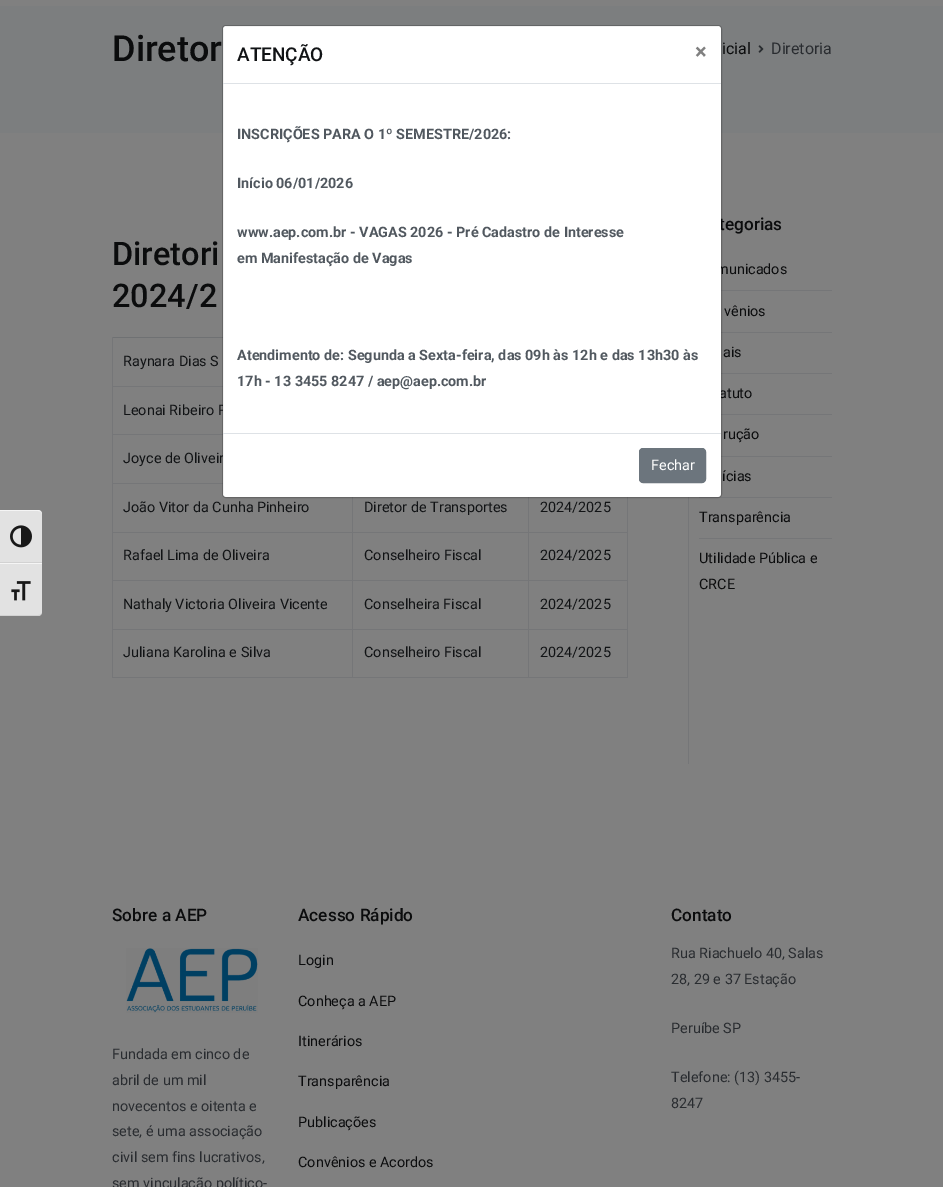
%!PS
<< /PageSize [943 1187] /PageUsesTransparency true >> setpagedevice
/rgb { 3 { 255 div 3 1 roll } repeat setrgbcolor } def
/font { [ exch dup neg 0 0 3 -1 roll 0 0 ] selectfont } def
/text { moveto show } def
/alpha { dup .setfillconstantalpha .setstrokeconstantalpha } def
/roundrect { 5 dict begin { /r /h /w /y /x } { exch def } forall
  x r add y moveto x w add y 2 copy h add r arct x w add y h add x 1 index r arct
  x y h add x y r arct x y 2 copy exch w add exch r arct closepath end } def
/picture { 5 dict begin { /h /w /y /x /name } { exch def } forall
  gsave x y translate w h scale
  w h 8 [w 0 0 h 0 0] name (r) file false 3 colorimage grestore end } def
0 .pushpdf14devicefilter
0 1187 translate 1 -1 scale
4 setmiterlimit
128 128 128 rgb
0 0 943 1187 rectfill
124 126 127 rgb
0 6 943 127 rectfill
(img_01.rgb) 758 45 6 8 picture
111 113 115 rgb
112 337 111 1 rectfill
117 118 120 rgb
627 497 1 181 rectfill
528 677 100 1 rectfill
528 629 1 49 rectfill
528 629 100 1 rectfill
528 580 1 50 rectfill
528 580 100 1 rectfill
528 532 1 49 rectfill
528 532 100 1 rectfill
528 497 1 36 rectfill
352 677 177 1 rectfill
352 629 1 49 rectfill
352 629 177 1 rectfill
352 580 1 50 rectfill
352 580 177 1 rectfill
352 532 1 49 rectfill
352 532 177 1 rectfill
352 497 1 36 rectfill
112 677 241 1 rectfill
112 629 1 49 rectfill
112 629 241 1 rectfill
112 580 1 50 rectfill
112 580 241 1 rectfill
112 532 1 49 rectfill
112 532 241 1 rectfill
112 483 1 50 rectfill
112 483 111 1 rectfill
112 434 1 50 rectfill
112 434 111 1 rectfill
112 386 1 49 rectfill
112 386 111 1 rectfill
112 337 1 50 rectfill
688 497 1 267 rectfill
721 290 111 1 rectfill
721 332 111 1 rectfill
721 373 111 1 rectfill
721 414 111 1 rectfill
721 456 111 1 rectfill
699 497 133 1 rectfill
699 538 133 1 rectfill
(img_02.rgb) 126 948 132 65 picture
226 226 226 rgb
0 510 moveto 38 0 rlineto 2 0 4 2 4 4 rcurveto 0 49 rlineto -42 0 rlineto closepath fill
245 245 245 rgb
0 510 moveto 0 1 rlineto 38 0 rlineto 2 0 4 1 4 3 rcurveto 0 -2 -2 -4 -4 -4 rcurveto closepath fill
210 210 210 rgb
0 562 42 1 rectfill
(img_03.rgb) 10 525 22 23 picture
226 226 226 rgb
0 563 moveto 42 0 rlineto 0 49 rlineto 0 2 -2 4 -4 4 rcurveto -38 0 rlineto closepath fill
245 245 245 rgb
0 563 42 1 rectfill
210 210 210 rgb
0 615 moveto 0 1 rlineto 38 0 rlineto 2 0 4 -2 4 -4 rcurveto 0 2 -2 3 -4 3 rcurveto closepath fill
(img_04.rgb) 11 581 20 20 picture
/Roboto-Medium 36 font
11 12 13 rgb
(Diretor) 112 61 text
/Roboto-Regular 16 font
(icial) 722 54 text
41 44 48 rgb
(Diretoria) 771 54 text
/Roboto-Medium 32.5 font
11 12 13 rgb
(Diretori) 112 265 text
(2024/2) 112 307 text
/Roboto-Regular 14.4 font
17 19 21 rgb
(Raynara Dias S) 123 366 text
(Leonai Ribeiro R) 123 415 text
(Joyce de Oliveir) 123 463 text
(João Vitor da Cunha Pinheiro) 123 512 text
(Diretor de Transportes) 364 512 text
(2024/2025) 540 512 text
(Rafael Lima de Oliveira) 123 560 text
(Conselheiro Fiscal) 364 560 text
(2024/2025) 540 560 text
(Nathaly Victoria Oliveira Vicente) 123 609 text
(Conselheira Fiscal) 364 609 text
(2024/2025) 540 609 text
(Juliana Karolina e Silva) 123 657 text
(Conselheiro Fiscal) 364 657 text
(2024/2025) 540 657 text
/Roboto-Medium 17.25 font
11 12 13 rgb
(tegorias) 719 230 text
/Roboto-Regular 14.4 font
(municados) 716 274 text
(vênios) 724 316 text
(ais) 723 357 text
(atuto) 719 398 text
(rução) 723 439 text
(ícias) 722 481 text
(Transparência) 699 522 text
(Utilidade Pública e) 699 563 text
(CRCE) 699 589 text
/Roboto-Medium 17.25 font
(Sobre a AEP) 112 921 text
/Roboto-Regular 14.4 font
41 44 48 rgb
(Fundada em cinco de) 112 1059 text
(abril de um mil) 112 1085 text
(novecentos e oitenta e) 112 1111 text
(sete, é uma associação) 112 1136 text
(civil sem fins lucrativos,) 112 1162 text
(sem vinculação político-) 112 1188 text
/Roboto-Medium 17.25 font
11 12 13 rgb
(Acesso Rápido) 298 921 text
/Roboto-Regular 14.4 font
(Login) 298 965 text
(Conheça a AEP) 298 1006 text
(Itinerários) 298 1046 text
(Transparência) 298 1086 text
(Publicações) 298 1127 text
(Convênios e Acordos) 298 1167 text
/Roboto-Medium 17.25 font
(Contato) 671 921 text
/Roboto-Regular 14.4 font
41 44 48 rgb
(Rua Riachuelo 40, Salas) 671 958 text
(28, 29 e 37 Estação) 671 984 text
(Peruíbe SP) 671 1033 text
(Telefone: \(13\) 3455-) 671 1082 text
(8247) 671 1108 text
255 255 255 rgb
223 26 498 471 3 roundrect fill
0.2 alpha
0 0 0 rgb
222.5 25.5 499 472 3.5 roundrect stroke
1 alpha
222 226 230 rgb
223 83 498 1 rectfill
/Roboto-Medium 19 font
17 19 21 rgb
(ATENÇÃO) 237 61 text
/Roboto-Bold 22 font
128 128 128 rgb
(×) 695 59 text
/Roboto-Bold 14.4 font
81 88 95 rgb
(INSCRIÇÕES PARA O 1º SEMESTRE/2026:) 237 139 text
(Início 06/01/2026) 237 188 text
(www.aep.com.br - VAGAS 2026 - Pré Cadastro de Interesse) 237 237 text
(em Manifestação de Vagas) 237 263 text
(Atendimento de: Segunda a Sexta-feira, das 09h às 12h e das 13h30 às) 237 360 text
(17h - 13 3455 8247 / aep@aep.com.br) 237 386 text
222 226 230 rgb
223 433 498 1 rectfill
108 117 125 rgb
639.5 448.5 66 34 3.5 roundrect gsave fill grestore
stroke
/Roboto-Regular 14.4 font
255 255 255 rgb
(Fechar) 651 470 text
.poppdf14devicefilter showpage
